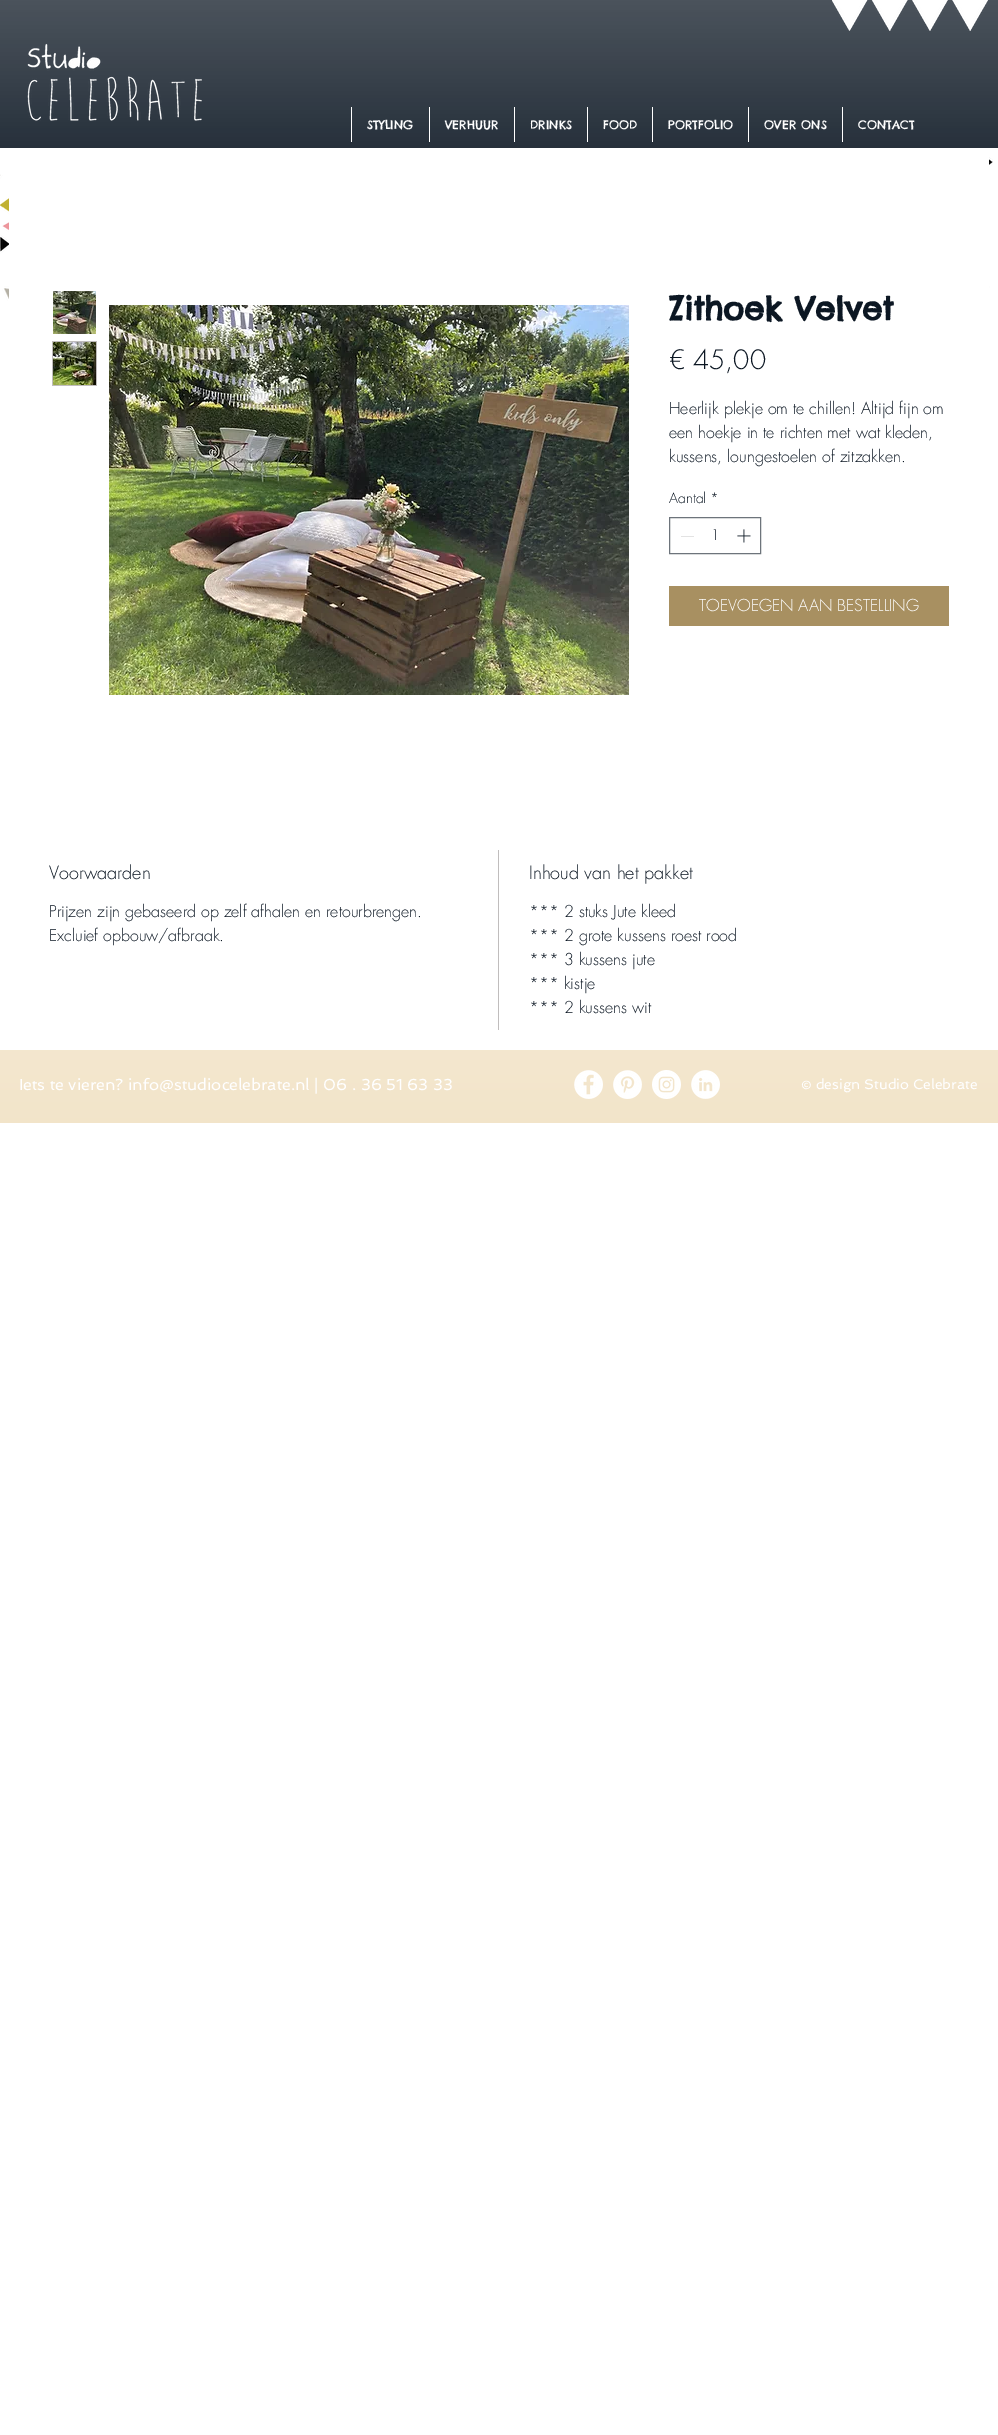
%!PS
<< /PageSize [998 2435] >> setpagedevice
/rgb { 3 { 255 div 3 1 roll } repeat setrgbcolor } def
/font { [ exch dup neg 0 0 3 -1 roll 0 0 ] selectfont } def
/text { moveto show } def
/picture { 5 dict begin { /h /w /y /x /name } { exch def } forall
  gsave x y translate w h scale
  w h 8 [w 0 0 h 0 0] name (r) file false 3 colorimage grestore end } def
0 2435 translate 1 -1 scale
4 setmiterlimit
255 255 255 rgb
0 0 998 2435 rectfill
12 23 35 rgb
0 0 998 148 rectfill
(img_01.rgb) 0 0 998 148 picture
(img_02.rgb) 832 0 156 31 picture
(img_03.rgb) 27 43 175 78 picture
255 255 255 rgb
351 107 1 35 rectfill
429 107 1 35 rectfill
514 107 1 35 rectfill
587 107 1 35 rectfill
652 107 1 35 rectfill
748 107 1 35 rectfill
842 107 1 35 rectfill
(img_13.rgb) 0 157 993 144 picture
9 157 980 144 rectfill
(img_04.rgb) 53 291 43 43 picture
192 189 189 rgb
52 341 45 45 rectfill
(img_05.rgb) 53 342 43 43 picture
(img_06.rgb) 109 305 520 390 picture
109 116 123 rgb
669.5 517.5 91 36 rectstroke
227 227 227 rgb
681 536 13 1 rectfill
(img_07.rgb) 737 529 14 14 picture
168 144 97 rgb
669 586 280 40 rectfill
192 189 189 rgb
498 850 1 180 rectfill
239 222 189 rgb
0 1050 998 73 rectfill
(img_08.rgb) 0 1050 998 73 picture
(img_09.rgb) 574 1070 29 29 picture
(img_10.rgb) 613 1070 29 29 picture
(img_11.rgb) 652 1070 29 29 picture
(img_12.rgb) 691 1070 29 29 picture
/ChelseaMarket-Regular 12 font
255 255 255 rgb
(STYLING) 367 129 text
(VERHUUR) 445 129 text
(DRINKS) 530 129 text
(FOOD) 603 129 text
(PORTFOLIO) 668 129 text
(OVER ONS) 764 129 text
(CONTACT) 858 129 text
/ChelseaMarket-Bold 32 font
12 23 35 rgb
(Zithoek Velvet) 669 320 text
/futura-Light 26 font
(€ 45,00) 669 369 text
/futura-Light 16 font
(Heerlijk plekje om te chillen! Altijd fijn om) 669 414 text
(een hoekje in te richten met wat kleden,) 669 438 text
(kussens, loungestoelen of zitzakken.) 669 462 text
/futura-Light 14 font
(Aantal) 669 503 text
(*) 710 503 text
(1) 711 540 text
/futura-Light 16 font
255 255 255 rgb
(TOEVOEGEN AAN BESTELLING) 699 611 text
/futura-Light 18 font
12 23 35 rgb
(Voorwaarden) 49 879 text
/futura-Light 16 font
(Prijzen zijn gebaseerd op zelf afhalen en retourbrengen.) 49 917 text
(Excluief opbouw/afbraak.) 49 941 text
/futura-Light 18 font
(Inhoud van het pakket) 529 879 text
/futura-Light 16 font
(*** 2 stuks Jute kleed) 529 917 text
(*** 2 grote kussens roest rood) 529 941 text
(*** 3 kussens jute) 529 965 text
(*** kistje) 529 989 text
(*** 2 kussens wit) 529 1013 text
/Spinnaker-Regular 16 font
255 255 255 rgb
(Iets te vieren? info@studiocelebrate.nl | 06 . 36 51 63 33) 19 1090 text
/Spinnaker-Regular 14 font
(© design Studio Celebrate) 801 1089 text
showpage
